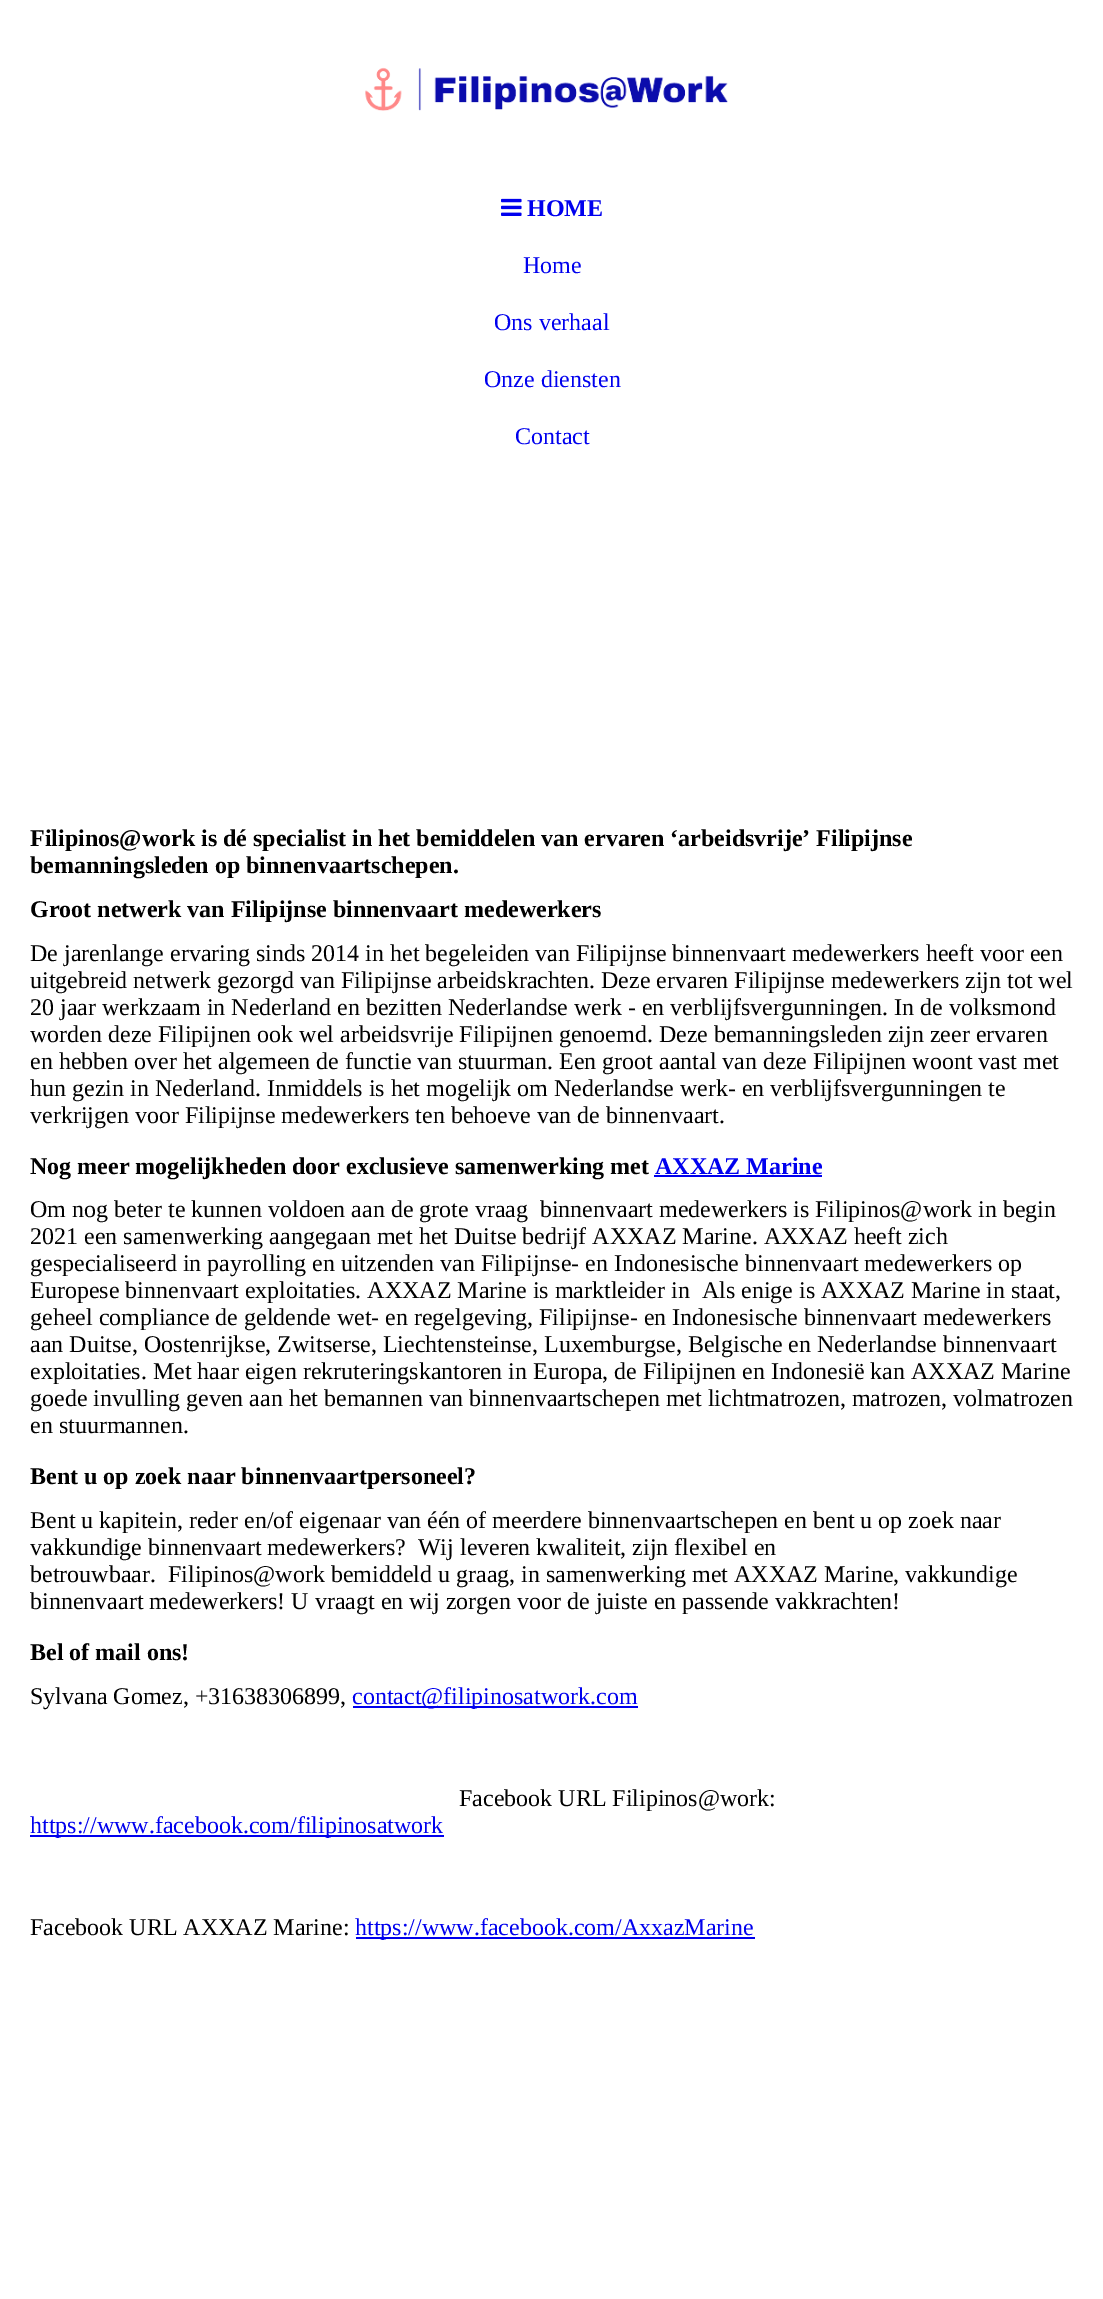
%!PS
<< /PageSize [1103 2299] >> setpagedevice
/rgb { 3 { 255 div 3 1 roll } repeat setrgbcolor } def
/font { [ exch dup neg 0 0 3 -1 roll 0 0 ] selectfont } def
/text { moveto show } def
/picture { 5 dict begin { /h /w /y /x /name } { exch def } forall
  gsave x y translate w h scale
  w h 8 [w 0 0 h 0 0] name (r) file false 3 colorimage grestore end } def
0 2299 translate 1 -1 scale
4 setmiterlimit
255 255 255 rgb
0 0 1103 2299 rectfill
(img_01.rgb) 365 67 363 44 picture
(img_02.rgb) 501 198 21 18 picture
0 0 238 rgb
654 1175 168 2 rectfill
353 1706 285 2 rectfill
30 1835 414 2 rectfill
356 1937 399 2 rectfill
/LiberationSerif-Bold 24 font
(HOME) 527 216 text
/LiberationSerif-Regular 24 font
(Home) 523 273 text
(Ons verhaal) 494 330 text
(Onze diensten) 484 387 text
(Contact) 515 444 text
/LiberationSerif-Bold 24 font
0 0 0 rgb
(Filipinos@work is dé specialist in het bemiddelen van ervaren ‘arbeidsvrije’ Filipijnse) 30 846 text
(bemanningsleden op binnenvaartschepen.) 30 873 text
(Groot netwerk van Filipijnse binnenvaart medewerkers) 30 917 text
/LiberationSerif-Regular 24 font
(De jarenlange ervaring sinds 2014 in het begeleiden van Filipijnse binnenvaart medewerkers heeft voor een) 30 961 text
(uitgebreid netwerk gezorgd van Filipijnse arbeidskrachten. Deze ervaren Filipijnse medewerkers zijn tot wel) 30 988 text
(20 jaar werkzaam in Nederland en bezitten Nederlandse werk - en verblijfsvergunningen. In de volksmond) 30 1015 text
(worden deze Filipijnen ook wel arbeidsvrije Filipijnen genoemd. Deze bemanningsleden zijn zeer ervaren) 30 1042 text
(en hebben over het algemeen de functie van stuurman. Een groot aantal van deze Filipijnen woont vast met) 30 1069 text
(hun gezin in Nederland. Inmiddels is het mogelijk om Nederlandse werk- en verblijfsvergunningen te) 30 1096 text
(verkrijgen voor Filipijnse medewerkers ten behoeve van de binnenvaart.) 30 1123 text
/LiberationSerif-Bold 24 font
(Nog meer mogelijkheden door exclusieve samenwerking met) 30 1174 text
0 0 238 rgb
(AXXAZ Marine) 655 1174 text
/LiberationSerif-Regular 24 font
0 0 0 rgb
(Om nog beter te kunnen voldoen aan de grote vraag  binnenvaart medewerkers is Filipinos@work in begin) 30 1217 text
(2021 een samenwerking aangegaan met het Duitse bedrijf AXXAZ Marine. AXXAZ heeft zich) 30 1244 text
(gespecialiseerd in payrolling en uitzenden van Filipijnse- en Indonesische binnenvaart medewerkers op) 30 1271 text
(Europese binnenvaart exploitaties. AXXAZ Marine is marktleider in  Als enige is AXXAZ Marine in staat,) 30 1298 text
(geheel compliance de geldende wet- en regelgeving, Filipijnse- en Indonesische binnenvaart medewerkers) 30 1325 text
(aan Duitse, Oostenrijkse, Zwitserse, Liechtensteinse, Luxemburgse, Belgische en Nederlandse binnenvaart) 30 1352 text
(exploitaties. Met haar eigen rekruteringskantoren in Europa, de Filipijnen en Indonesië kan AXXAZ Marine) 30 1379 text
(goede invulling geven aan het bemannen van binnenvaartschepen met lichtmatrozen, matrozen, volmatrozen) 30 1406 text
(en stuurmannen.) 30 1433 text
/LiberationSerif-Bold 24 font
(Bent u op zoek naar binnenvaartpersoneel?) 30 1484 text
/LiberationSerif-Regular 24 font
(Bent u kapitein, reder en/of eigenaar van één of meerdere binnenvaartschepen en bent u op zoek naar) 30 1528 text
(vakkundige binnenvaart medewerkers?  Wij leveren kwaliteit, zijn flexibel en) 30 1555 text
(betrouwbaar.  Filipinos@work bemiddeld u graag, in samenwerking met AXXAZ Marine, vakkundige) 30 1582 text
(binnenvaart medewerkers! U vraagt en wij zorgen voor de juiste en passende vakkrachten!) 30 1609 text
/LiberationSerif-Bold 24 font
(Bel of mail ons!) 30 1660 text
/LiberationSerif-Regular 24 font
(Sylvana Gomez, +31638306899,) 30 1704 text
0 0 238 rgb
(contact@filipinosatwork.com) 352 1704 text
0 0 0 rgb
(Facebook URL Filipinos@work:) 459 1806 text
0 0 238 rgb
(https://www.facebook.com/filipinosatwork) 30 1833 text
0 0 0 rgb
(Facebook URL AXXAZ Marine:) 30 1935 text
0 0 238 rgb
(https://www.facebook.com/AxxazMarine) 355 1935 text
showpage
